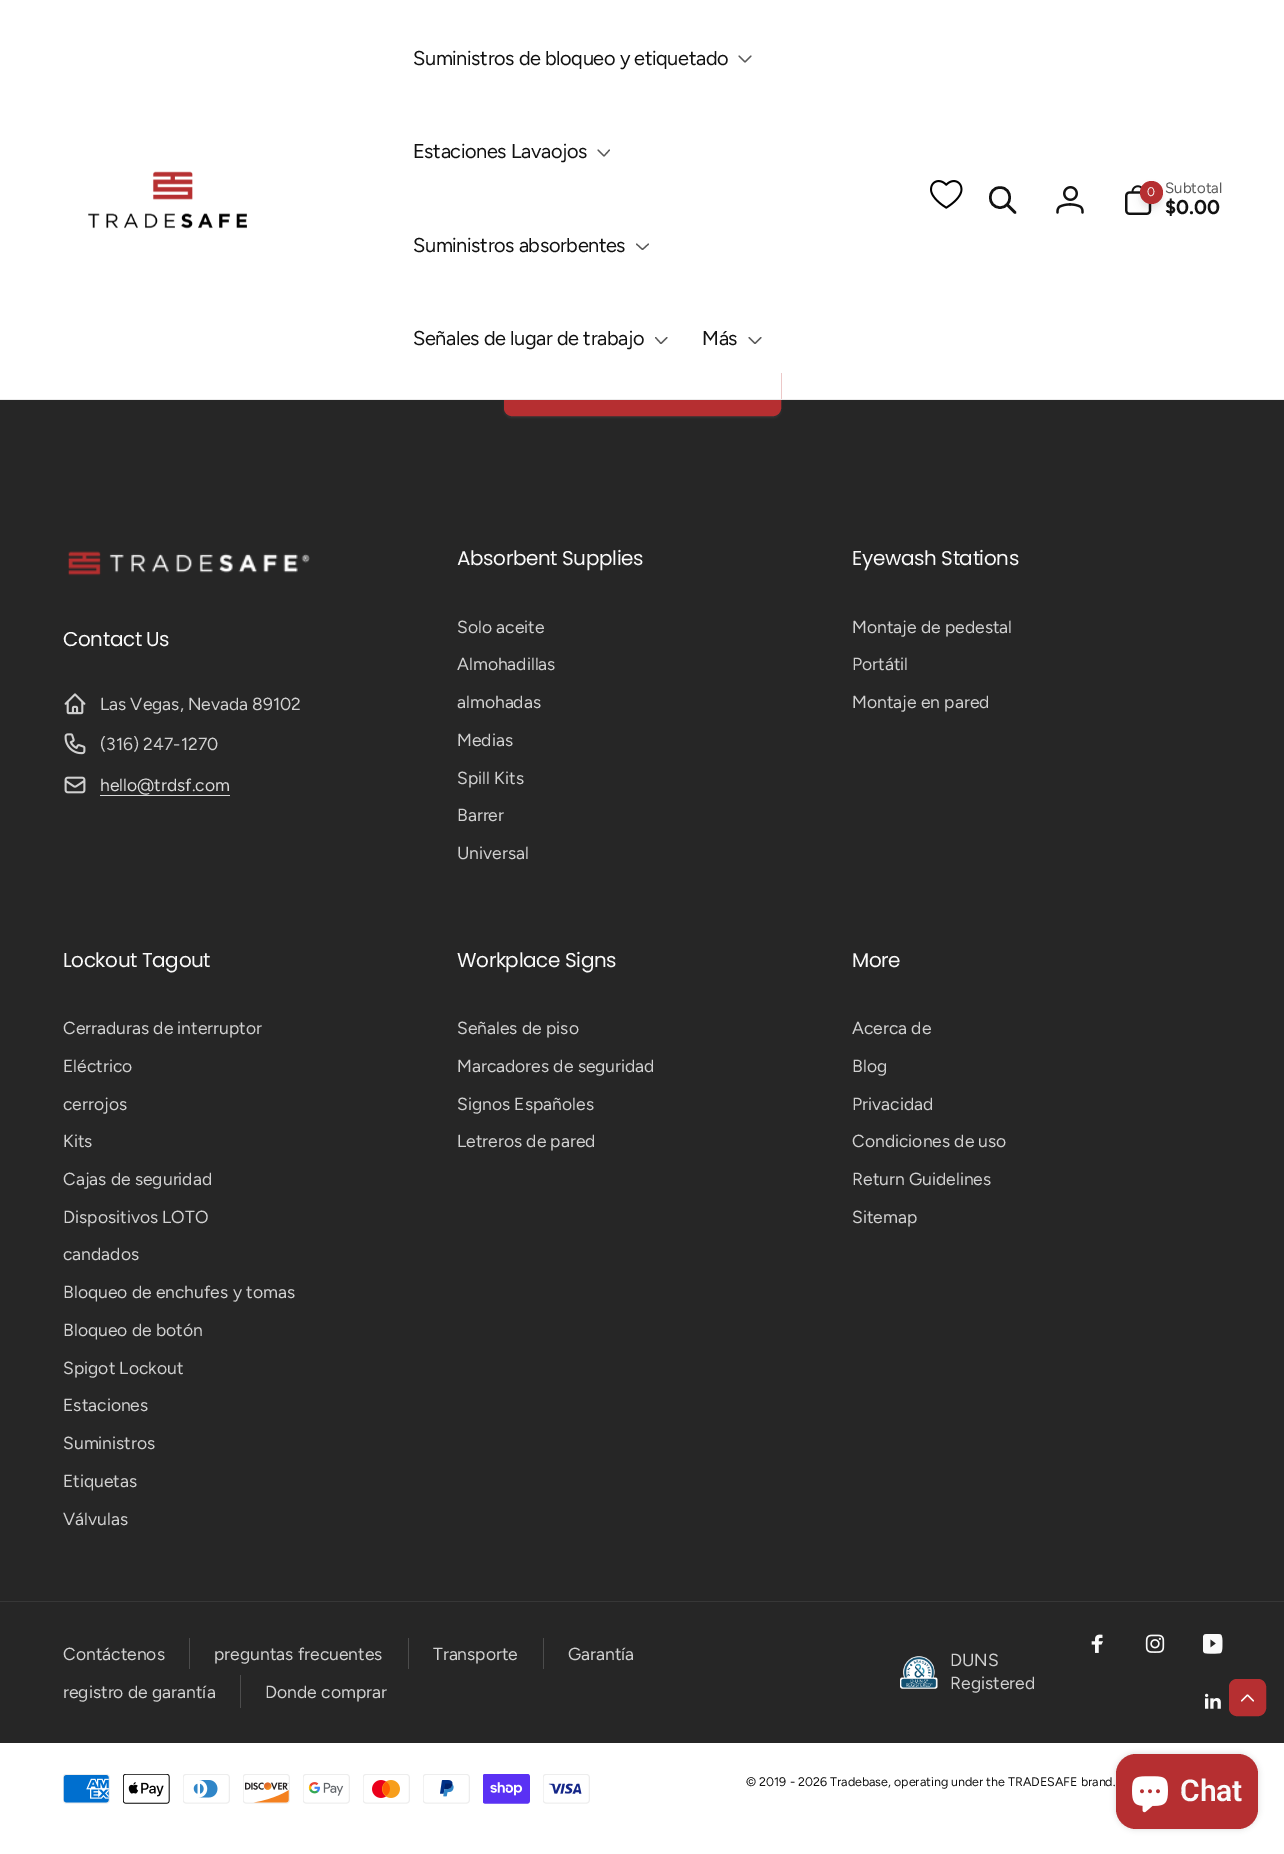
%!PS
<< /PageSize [1284 1854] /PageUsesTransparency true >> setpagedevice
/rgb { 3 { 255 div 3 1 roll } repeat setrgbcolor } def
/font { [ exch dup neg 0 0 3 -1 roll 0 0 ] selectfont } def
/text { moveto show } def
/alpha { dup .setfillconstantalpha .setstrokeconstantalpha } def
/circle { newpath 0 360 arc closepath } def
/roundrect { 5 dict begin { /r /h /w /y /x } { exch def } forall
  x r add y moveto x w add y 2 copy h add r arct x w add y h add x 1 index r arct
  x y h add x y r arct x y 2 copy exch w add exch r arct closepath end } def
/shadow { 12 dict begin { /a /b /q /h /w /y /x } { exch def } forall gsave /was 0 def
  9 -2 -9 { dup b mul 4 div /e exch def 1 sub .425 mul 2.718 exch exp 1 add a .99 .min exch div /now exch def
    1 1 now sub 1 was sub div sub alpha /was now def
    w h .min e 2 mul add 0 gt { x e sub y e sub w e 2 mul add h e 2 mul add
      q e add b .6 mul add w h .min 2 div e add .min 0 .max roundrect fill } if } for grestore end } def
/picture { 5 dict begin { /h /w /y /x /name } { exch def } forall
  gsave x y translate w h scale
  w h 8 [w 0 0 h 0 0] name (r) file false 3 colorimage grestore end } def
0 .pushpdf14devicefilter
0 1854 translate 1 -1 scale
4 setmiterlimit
255 255 255 rgb
0 0 1284 1854 rectfill
38 38 38 rgb
0 400 1284 1343 rectfill
250 250 250 rgb
504 368 277 50 8 1 0.05 shadow
182 47 49 rgb
504.5 366.5 276 49 7.5 roundrect gsave fill grestore
stroke
255 255 255 rgb
504 366 277 33 rectfill
236 236 236 rgb
0 399 1284 1 rectfill
(img_01.rgb) 88 171 159 58 picture
89 89 89 rgb
1.2 setlinewidth
1 setlinecap
1 setlinejoin
751 56 moveto -6 6 rlineto -6 -6 rlineto stroke
609.5 150 moveto -5.5 6 rlineto -6 -6 rlineto stroke
648.5 244 moveto -6 5.5 rlineto -6 -5.5 rlineto stroke
667 337.5 moveto -6 6 rlineto -5.5 -6 rlineto stroke
761 337.5 moveto -6 6 rlineto -6 -6 rlineto stroke
(img_02.rgb) 930 180 33 29 picture
18 18 18 rgb
2.5 setlinewidth
1015 212.5 moveto -8 -8 rlineto 1000 207.5 moveto 13 0 13 -20 0 -20 rcurveto -13 0 -13 20 0 20 rcurveto closepath stroke
(img_03.rgb) 1056 186 28 28 picture
(img_04.rgb) 1125 185 27 30 picture
1141 185 20 20 10 2.5 0.06 shadow
1141 188 20 20 10 4 0.1 shadow
182 47 49 rgb
1151.5 192.5 11.5 circle fill
(img_05.rgb) 68 551 242 25 picture
(img_06.rgb) 64 693 22 22 picture
(img_07.rgb) 64 733 22 22 picture
(img_08.rgb) 64 776 22 18 picture
218 218 218 rgb
100 795 130 1 rectfill
55 55 55 rgb
0 1601 1284 1 rectfill
76 76 76 rgb
189 1638 1 31 rectfill
408 1638 1 31 rectfill
543 1638 1 31 rectfill
240 1675 1 33 rectfill
(img_09.rgb) 900 1656 38 33 picture
(img_10.rgb) 1091 1634 12 19 picture
(img_11.rgb) 1145 1634 20 19 picture
(img_12.rgb) 1203 1634 20 20 picture
(img_13.rgb) 1205 1693 16 16 picture
(img_14.rgb) 63 1774 47 30 picture
(img_15.rgb) 123 1774 47 30 picture
(img_16.rgb) 183 1774 47 30 picture
(img_17.rgb) 243 1774 47 30 picture
(img_18.rgb) 303 1774 47 30 picture
(img_19.rgb) 363 1774 47 30 picture
(img_20.rgb) 423 1774 47 30 picture
(img_21.rgb) 483 1774 47 30 picture
(img_22.rgb) 543 1774 47 30 picture
182 47 49 rgb
1229.5 1679.5 36 36 7.5 roundrect gsave fill grestore
1 setlinewidth
0 setlinecap
0 setlinejoin
stroke
255 255 255 rgb
1.2 setlinewidth
1 setlinecap
1 setlinejoin
1241.5 1701 moveto 6 -6 rlineto 6 6 rlineto stroke
0 0 0 rgb
1116 1754 142 75 20 3 0.15 shadow
182 47 49 rgb
1116 1754 142 75 20 roundrect fill
(img_23.rgb) 1132 1776 36 37 picture
/Figtree-Regular 20 font
18 18 18 rgb
413 65 moveto -0.4 0 (Suministros de bloqueo y etiquetado) ashow
413 158 moveto -0.4 0 (Estaciones Lavaojos) ashow
413 252 moveto -0.4 0 (Suministros absorbentes) ashow
413 345 moveto -0.4 0 (Señales de lugar de trabajo) ashow
702 345 moveto -0.4 0 (Más) ashow
/Figtree-Regular 12.5 font
250 250 250 rgb
(0) 1147 196 text
/Figtree-Regular 15 font
89 89 89 rgb
(Subtotal) 1165 193 text
/Figtree-Bold 20 font
18 18 18 rgb
($0.00) 1165 214 text
/Poppins-Regular 20 font
250 250 250 rgb
63 646 moveto -0.4 0 (Contact Us) ashow
/Figtree-Regular 17.5 font
208 208 208 rgb
(Las Vegas, Nevada 89102) 100 710 text
(\(316\) 247-1270) 100 750 text
218 218 218 rgb
(hello@trdsf.com) 100 791 text
/Poppins-Regular 20 font
250 250 250 rgb
457 565 moveto -0.4 0 (Absorbent Supplies) ashow
/Figtree-Regular 17.5 font
208 208 208 rgb
(Solo aceite) 457 633 text
(Almohadillas) 457 670 text
(almohadas) 457 708 text
(Medias) 457 746 text
(Spill Kits) 457 784 text
(Barrer) 457 821 text
(Universal) 457 859 text
/Poppins-Regular 20 font
250 250 250 rgb
852 565 moveto -0.4 0 (Eyewash Stations) ashow
/Figtree-Regular 17.5 font
208 208 208 rgb
(Montaje de pedestal) 852 633 text
(Portátil) 852 670 text
(Montaje en pared) 852 708 text
/Poppins-Regular 20 font
250 250 250 rgb
63 967 moveto -0.4 0 (Lockout Tagout) ashow
/Figtree-Regular 17.5 font
208 208 208 rgb
(Cerraduras de interruptor) 63 1034 text
(Eléctrico) 63 1072 text
(cerrojos) 63 1110 text
(Kits) 63 1147 text
(Cajas de seguridad) 63 1185 text
(Dispositivos LOTO) 63 1223 text
(candados) 63 1260 text
(Bloqueo de enchufes y tomas) 63 1298 text
(Bloqueo de botón) 63 1336 text
(Spigot Lockout) 63 1374 text
(Estaciones) 63 1411 text
(Suministros) 63 1449 text
(Etiquetas) 63 1487 text
(Válvulas) 63 1525 text
/Poppins-Regular 20 font
250 250 250 rgb
457 967 moveto -0.4 0 (Workplace Signs) ashow
/Figtree-Regular 17.5 font
208 208 208 rgb
(Señales de piso) 457 1034 text
(Marcadores de seguridad) 457 1072 text
(Signos Españoles) 457 1110 text
(Letreros de pared) 457 1147 text
/Poppins-Regular 20 font
250 250 250 rgb
852 967 moveto -0.4 0 (More) ashow
/Figtree-Regular 17.5 font
208 208 208 rgb
(Acerca de) 852 1034 text
(Blog) 852 1072 text
(Privacidad) 852 1110 text
(Condiciones de uso) 852 1147 text
(Return Guidelines) 852 1185 text
(Sitemap) 852 1223 text
(Contáctenos) 63 1660 text
(preguntas frecuentes) 214 1660 text
(Transporte) 433 1660 text
(Garantía) 568 1660 text
(registro de garantía) 63 1698 text
(Donde comprar) 265 1698 text
(DUNS) 950 1666 text
(Registered) 950 1689 text
/Figtree-Regular 12.5 font
18 18 18 rgb
(© 2019 - 2026 Tradebase, operating under the TRADESAFE brand.) 746 1786 text
/Roboto-SemiBold 30 font
250 250 250 rgb
(Chat) 1180 1801 text
.poppdf14devicefilter showpage
